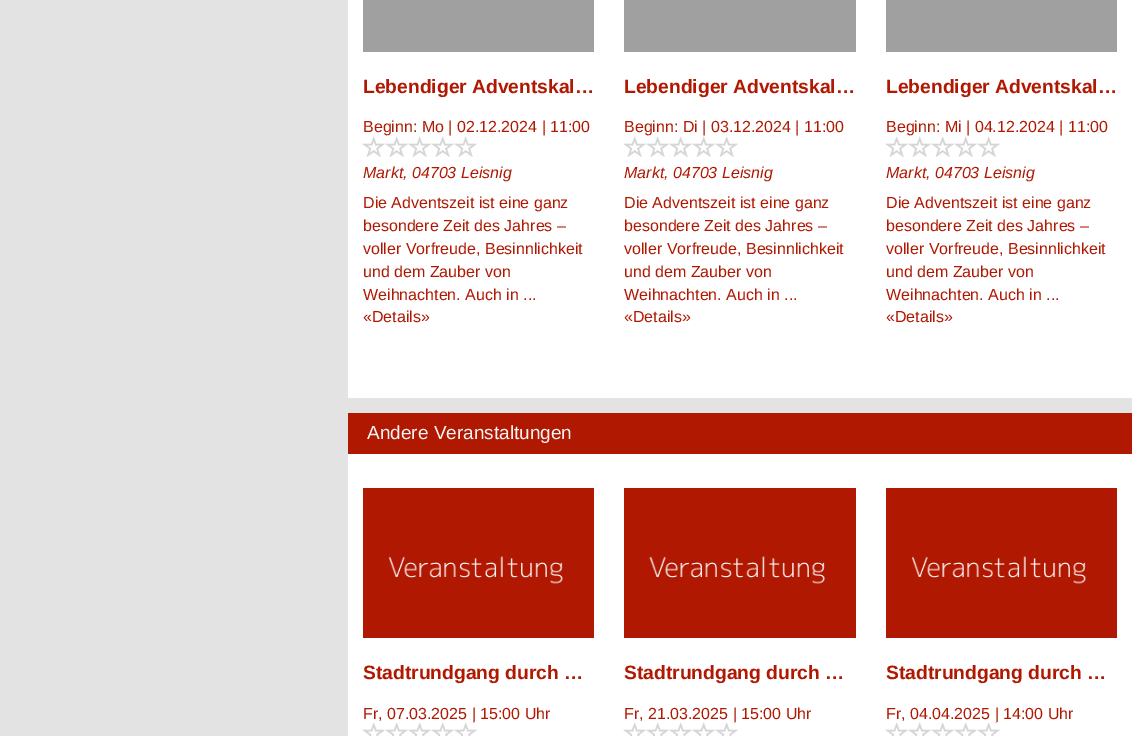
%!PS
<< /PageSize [1132 736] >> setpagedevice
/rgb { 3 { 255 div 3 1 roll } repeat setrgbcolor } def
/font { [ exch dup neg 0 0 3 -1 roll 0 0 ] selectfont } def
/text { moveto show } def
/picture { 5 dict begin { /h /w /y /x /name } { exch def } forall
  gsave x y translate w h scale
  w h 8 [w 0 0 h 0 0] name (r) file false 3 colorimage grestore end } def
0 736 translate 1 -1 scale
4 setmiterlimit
227 227 227 rgb
0 0 1132 736 rectfill
255 255 255 rgb
348 0 784 398 rectfill
160 160 160 rgb
363 0 231 52 rectfill
(img_01.rgb) 362 136 23 21 picture
(img_01.rgb) 385 136 23 21 picture
(img_01.rgb) 408 136 23 21 picture
(img_01.rgb) 431 136 23 21 picture
(img_01.rgb) 454 136 23 21 picture
624 0 232 52 rectfill
(img_01.rgb) 623 136 23 21 picture
(img_01.rgb) 646 136 23 21 picture
(img_01.rgb) 669 136 23 21 picture
(img_01.rgb) 692 136 23 21 picture
(img_01.rgb) 715 136 23 21 picture
886 0 231 52 rectfill
(img_01.rgb) 885 136 23 21 picture
(img_01.rgb) 908 136 23 21 picture
(img_01.rgb) 931 136 23 21 picture
(img_01.rgb) 954 136 23 21 picture
(img_01.rgb) 977 136 23 21 picture
255 255 255 rgb
348 454 784 282 rectfill
176 24 2 rgb
348 413 784 41 rectfill
(img_02.rgb) 363 488 231 150 picture
(img_05.rgb) 624 488 232 150 picture
(img_07.rgb) 886 488 231 150 picture
/LiberationSans-Bold 19.25 font
(Lebendiger Adventskal…) 363 93 text
/LiberationSans-Regular 16 font
(Beginn: Mo | 02.12.2024 | 11:00) 363 132 text
/LiberationSans-Italic 16 font
(Markt, 04703 Leisnig) 363 178 text
/LiberationSans-Regular 16 font
(Die Adventszeit ist eine ganz) 363 208 text
(besondere Zeit des Jahres –) 363 231 text
(voller Vorfreude, Besinnlichkeit) 363 254 text
(und dem Zauber von) 363 277 text
(Weihnachten. Auch in ...) 363 300 text
(«Details») 363 322 text
/LiberationSans-Bold 19.25 font
(Lebendiger Adventskal…) 624 93 text
/LiberationSans-Regular 16 font
(Beginn: Di | 03.12.2024 | 11:00) 624 132 text
/LiberationSans-Italic 16 font
(Markt, 04703 Leisnig) 624 178 text
/LiberationSans-Regular 16 font
(Die Adventszeit ist eine ganz) 624 208 text
(besondere Zeit des Jahres –) 624 231 text
(voller Vorfreude, Besinnlichkeit) 624 254 text
(und dem Zauber von) 624 277 text
(Weihnachten. Auch in ...) 624 300 text
(«Details») 624 322 text
/LiberationSans-Bold 19.25 font
(Lebendiger Adventskal…) 886 93 text
/LiberationSans-Regular 16 font
(Beginn: Mi | 04.12.2024 | 11:00) 886 132 text
/LiberationSans-Italic 16 font
(Markt, 04703 Leisnig) 886 178 text
/LiberationSans-Regular 16 font
(Die Adventszeit ist eine ganz) 886 208 text
(besondere Zeit des Jahres –) 886 231 text
(voller Vorfreude, Besinnlichkeit) 886 254 text
(und dem Zauber von) 886 277 text
(Weihnachten. Auch in ...) 886 300 text
(«Details») 886 322 text
/LiberationSans-Regular 19 font
245 245 245 rgb
(Andere Veranstaltungen) 367 439 text
/LiberationSans-Bold 19.25 font
176 24 2 rgb
(Stadtrundgang durch …) 363 679 text
/LiberationSans-Regular 16 font
(Fr, 07.03.2025 | 15:00 Uhr) 363 719 text
(img_03.rgb) 362 722 23 14 picture
(img_03.rgb) 385 722 23 14 picture
(img_03.rgb) 408 722 23 14 picture
(img_03.rgb) 431 722 23 14 picture
(img_04.rgb) 454 722 23 14 picture
/LiberationSans-Bold 19.25 font
(Stadtrundgang durch …) 624 679 text
/LiberationSans-Regular 16 font
(Fr, 21.03.2025 | 15:00 Uhr) 624 719 text
(img_03.rgb) 623 722 23 14 picture
(img_03.rgb) 646 722 23 14 picture
(img_03.rgb) 669 722 23 14 picture
(img_03.rgb) 692 722 23 14 picture
(img_06.rgb) 715 722 23 14 picture
/LiberationSans-Bold 19.25 font
(Stadtrundgang durch …) 886 679 text
/LiberationSans-Regular 16 font
(Fr, 04.04.2025 | 14:00 Uhr) 886 719 text
(img_03.rgb) 885 722 23 14 picture
(img_03.rgb) 908 722 23 14 picture
(img_03.rgb) 931 722 23 14 picture
(img_03.rgb) 954 722 23 14 picture
(img_08.rgb) 977 722 23 14 picture
showpage
